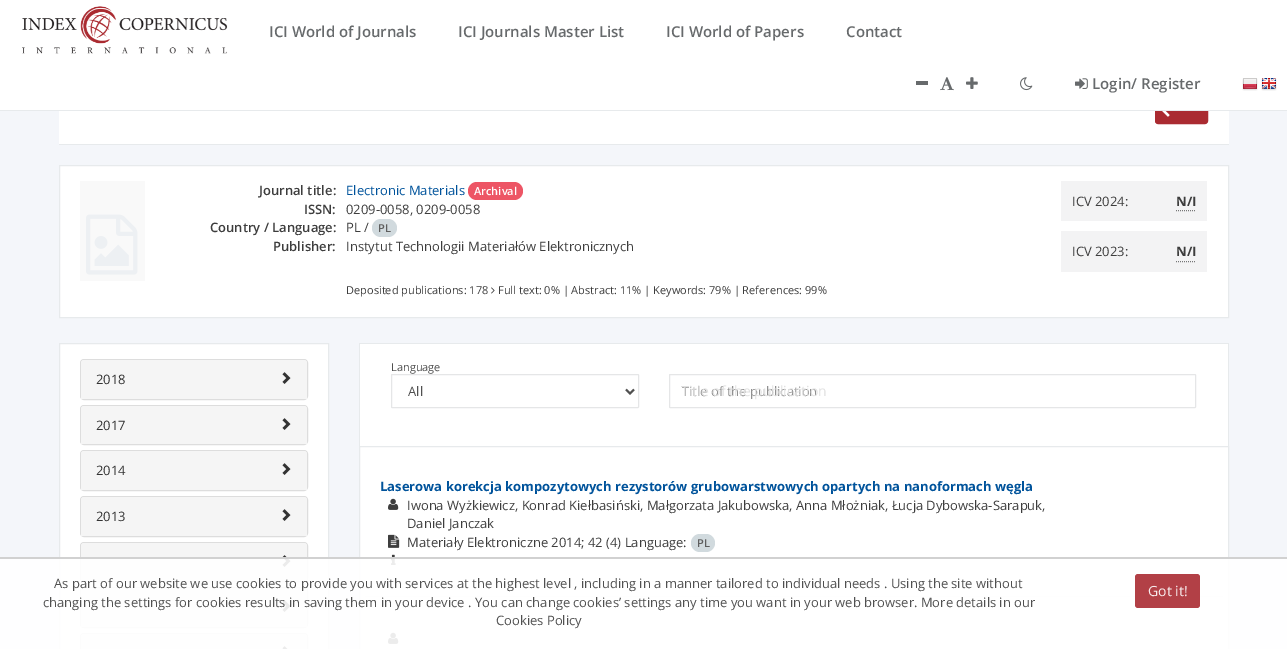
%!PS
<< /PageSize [1287 649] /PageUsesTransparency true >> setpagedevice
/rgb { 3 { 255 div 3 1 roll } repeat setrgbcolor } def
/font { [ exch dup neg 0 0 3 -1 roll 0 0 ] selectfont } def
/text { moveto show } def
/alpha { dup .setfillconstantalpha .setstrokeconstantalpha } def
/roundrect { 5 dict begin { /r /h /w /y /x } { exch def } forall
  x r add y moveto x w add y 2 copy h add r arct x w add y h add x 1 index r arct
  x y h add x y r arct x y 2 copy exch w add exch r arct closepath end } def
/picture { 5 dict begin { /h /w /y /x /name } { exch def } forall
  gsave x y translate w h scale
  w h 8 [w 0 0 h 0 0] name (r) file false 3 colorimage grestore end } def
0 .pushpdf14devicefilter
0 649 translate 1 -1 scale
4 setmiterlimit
244 246 250 rgb
0 0 1287 649 rectfill
255 255 255 rgb
59 111 1170 33 rectfill
170 43 49 rgb
1155.5 100.5 52 23 2.5 roundrect gsave fill grestore
stroke
255 255 255 rgb
0 0 1287 110 rectfill
231 234 236 rgb
0 110 1287 1 rectfill
(img_01.rgb) 22 6 206 48 picture
103 106 108 rgb
916 81 12 4 rectfill
(img_02.rgb) 940 77 14 14 picture
(img_03.rgb) 966 77 12 12 picture
(img_04.rgb) 1020 77 13 14 picture
(img_05.rgb) 1075 78 13 11 picture
(img_06.rgb) 1242 78 16 13 picture
(img_07.rgb) 1261 78 16 13 picture
231 234 236 rgb
59 144 1170 1 rectfill
(img_08.rgb) 1162 111 8 6 picture
255 255 255 rgb
59.5 165.5 moveto 1169 0 rlineto 0 152 rlineto -1169 0 rlineto closepath gsave fill grestore
231 234 236 rgb
stroke
249 249 249 rgb
80 181 65 100 rectfill
(img_09.rgb) 86 214 52 61 picture
237 85 101 rgb
468 182 55 18 9 roundrect fill
209 218 222 rgb
372 219 25 18 9 roundrect fill
243 243 244 rgb
1061 181 146 40 rectfill
119 119 119 rgb
[1 1] 0 setdash
1176 210.5 moveto 20 0 rlineto stroke
243 243 244 rgb
1061 231 146 41 rectfill
119 119 119 rgb
1176 261.5 moveto 20 0 rlineto stroke
(img_10.rgb) 491 287 4 7 picture
255 255 255 rgb
59.5 343.5 moveto 269 0 rlineto 0 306 rlineto -269 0 rlineto closepath gsave fill grestore
231 234 236 rgb
[] 0 setdash
stroke
221 221 221 rgb
80.5 359.5 227 40 3.5 roundrect stroke
245 245 245 rgb
84 360 moveto 220 0 rlineto 1.5 0 3 1.5 3 3 rcurveto 0 36 rlineto -226 0 rlineto 0 -36 rlineto 0 -1.5 1.5 -3 3 -3 rcurveto closepath fill
(img_11.rgb) 282 372 9 12 picture
221 221 221 rgb
80.5 405.5 227 39 3.5 roundrect stroke
245 245 245 rgb
84 406 moveto 220 0 rlineto 1.5 0 3 1.5 3 3 rcurveto 0 35 rlineto -226 0 rlineto 0 -35 rlineto 0 -1.5 1.5 -3 3 -3 rcurveto closepath fill
(img_11.rgb) 282 418 9 12 picture
221 221 221 rgb
80.5 450.5 227 40 3.5 roundrect stroke
245 245 245 rgb
84 451 moveto 220 0 rlineto 1.5 0 3 1.5 3 3 rcurveto 0 36 rlineto -226 0 rlineto 0 -36 rlineto 0 -1.5 1.5 -3 3 -3 rcurveto closepath fill
(img_11.rgb) 282 463 9 12 picture
221 221 221 rgb
80.5 496.5 227 40 3.5 roundrect stroke
245 245 245 rgb
84 497 moveto 220 0 rlineto 1.5 0 3 1.5 3 3 rcurveto 0 36 rlineto -226 0 rlineto 0 -36 rlineto 0 -1.5 1.5 -3 3 -3 rcurveto closepath fill
(img_11.rgb) 282 509 9 12 picture
221 221 221 rgb
80.5 542.5 227 39 3.5 roundrect stroke
245 245 245 rgb
84 543 moveto 220 0 rlineto 1.5 0 3 1.5 3 3 rcurveto 0 35 rlineto -226 0 rlineto 0 -35 rlineto 0 -1.5 1.5 -3 3 -3 rcurveto closepath fill
(img_11.rgb) 282 555 9 12 picture
221 221 221 rgb
80.5 587.5 227 40 3.5 roundrect stroke
245 245 245 rgb
84 588 moveto 220 0 rlineto 1.5 0 3 1.5 3 3 rcurveto 0 36 rlineto -226 0 rlineto 0 -36 rlineto 0 -1.5 1.5 -3 3 -3 rcurveto closepath fill
(img_11.rgb) 282 600 9 12 picture
221 221 221 rgb
80.5 633.5 227 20 3.5 roundrect stroke
245 245 245 rgb
84 634 moveto 220 0 rlineto 1.5 0 3 1.5 3 3 rcurveto 0 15 rlineto -226 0 rlineto 0 -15 rlineto 0 -1.5 1.5 -3 3 -3 rcurveto closepath fill
(img_12.rgb) 282 646 6 3 picture
255 255 255 rgb
360 344 868 102 rectfill
231 234 236 rgb
359 343 870 1 rectfill
1228 343 1 103 rectfill
359 343 1 103 rectfill
229 230 231 rgb
391.5 374.5 247 33 0.5 roundrect stroke
80 80 80 rgb
2 setlinewidth
626 389.5 moveto 4 4 rlineto 4 -4 rlineto stroke
229 230 231 rgb
1 setlinewidth
669.5 374.5 526 33 0.5 roundrect stroke
255 255 255 rgb
359.5 446.5 moveto 869 0 rlineto 0 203 rlineto -869 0 rlineto closepath gsave fill grestore
231 234 236 rgb
stroke
241 241 241 rgb
365 596 858 1 rectfill
(img_13.rgb) 388 498 11 12 picture
(img_14.rgb) 388 534 12 14 picture
209 218 222 rgb
691 534 24 18 9 roundrect fill
(img_15.rgb) 391 554 5 11 picture
(img_13.rgb) 388 632 11 12 picture
0.9 alpha
255 255 255 rgb
0 557 1287 92 rectfill
204 204 204 rgb
0 557 1287 2 rectfill
1 alpha
178 64 70 rgb
1135 574 65 34 3 roundrect fill
/OpenSans-SemiBold 15 font
103 106 108 rgb
(ICI World of Journals) 269 37 text
(ICI Journals Master List) 458 37 text
(ICI World of Papers) 666 37 text
(Contact) 846 37 text
(Login/ Register) 1092 89 text
/OpenSans-SemiBold 13 font
61 61 61 rgb
(Journal title:) 259 195 text
/OpenSans-Regular 13 font
0 83 155 rgb
(Electronic Materials) 346 195 text
/OpenSans-SemiBold 11 font
255 255 255 rgb
(Archival) 474 195 text
/OpenSans-SemiBold 13 font
61 61 61 rgb
(ISSN:) 304 214 text
/OpenSans-Regular 13 font
(0209-0058, 0209-0058) 346 214 text
/OpenSans-SemiBold 13 font
(Country / Language:) 210 232 text
/OpenSans-Regular 13 font
(PL /) 346 232 text
/OpenSans-SemiBold 11 font
94 94 94 rgb
(PL) 378 232 text
/OpenSans-SemiBold 13 font
61 61 61 rgb
(Publisher:) 273 251 text
/OpenSans-Regular 13 font
(Instytut Technologii Materiałów Elektronicznych) 346 251 text
(ICV 2024:) 1072 206 text
/OpenSans-Bold 13 font
(N/I) 1176 206 text
/OpenSans-Regular 13 font
(ICV 2023:) 1072 256 text
/OpenSans-Bold 13 font
(N/I) 1176 256 text
/OpenSans-Regular 11 font
(Deposited publications: 178) 346 294 text
(Full text: 0% | Abstract: 11% | Keywords: 79% | References: 99%) 498 294 text
/OpenSans-Regular 13 font
51 51 51 rgb
(2018) 96 384 text
(2017) 96 430 text
(2014) 96 475 text
(2013) 96 521 text
/OpenSans-Regular 11 font
80 80 80 rgb
(Language) 391 371 text
/OpenSans-Regular 13 font
(All) 408 396 text
144 144 144 rgb
(Title of the publication) 682 396 text
/OpenSans-Regular 14 font
224 224 224 rgb
(Title of the publication) 681 396 text
/OpenSans-Bold 13 font
0 83 155 rgb
(Laserowa korekcja kompozytowych rezystorów grubowarstwowych opartych na nanoformach węgla) 380 491 text
/OpenSans-Regular 13 font
61 61 61 rgb
(Iwona Wyżkiewicz, Konrad Kiełbasiński, Małgorzata Jakubowska, Anna Młożniak, Łucja Dybowska-Sarapuk,) 407 510 text
(Daniel Janczak) 407 528 text
(Materiały Elektroniczne 2014; 42 \(4\) Language:) 407 547 text
/OpenSans-SemiBold 11 font
94 94 94 rgb
(PL) 697 547 text
/OpenSans-Regular 13 font
80 80 80 rgb
(As part of our website we use cookies to provide you with services at the highest level , including in a manner tailored to individual needs . Using the site without) 54 588 text
(changing the settings for cookies results in saving them in your device . You can change cookies’ settings any time you want in your web browser. More details in our) 43 607 text
(Cookies Policy) 496 625 text
/OpenSans-Regular 14 font
247 236 237 rgb
(Got it!) 1148 596 text
.poppdf14devicefilter showpage
